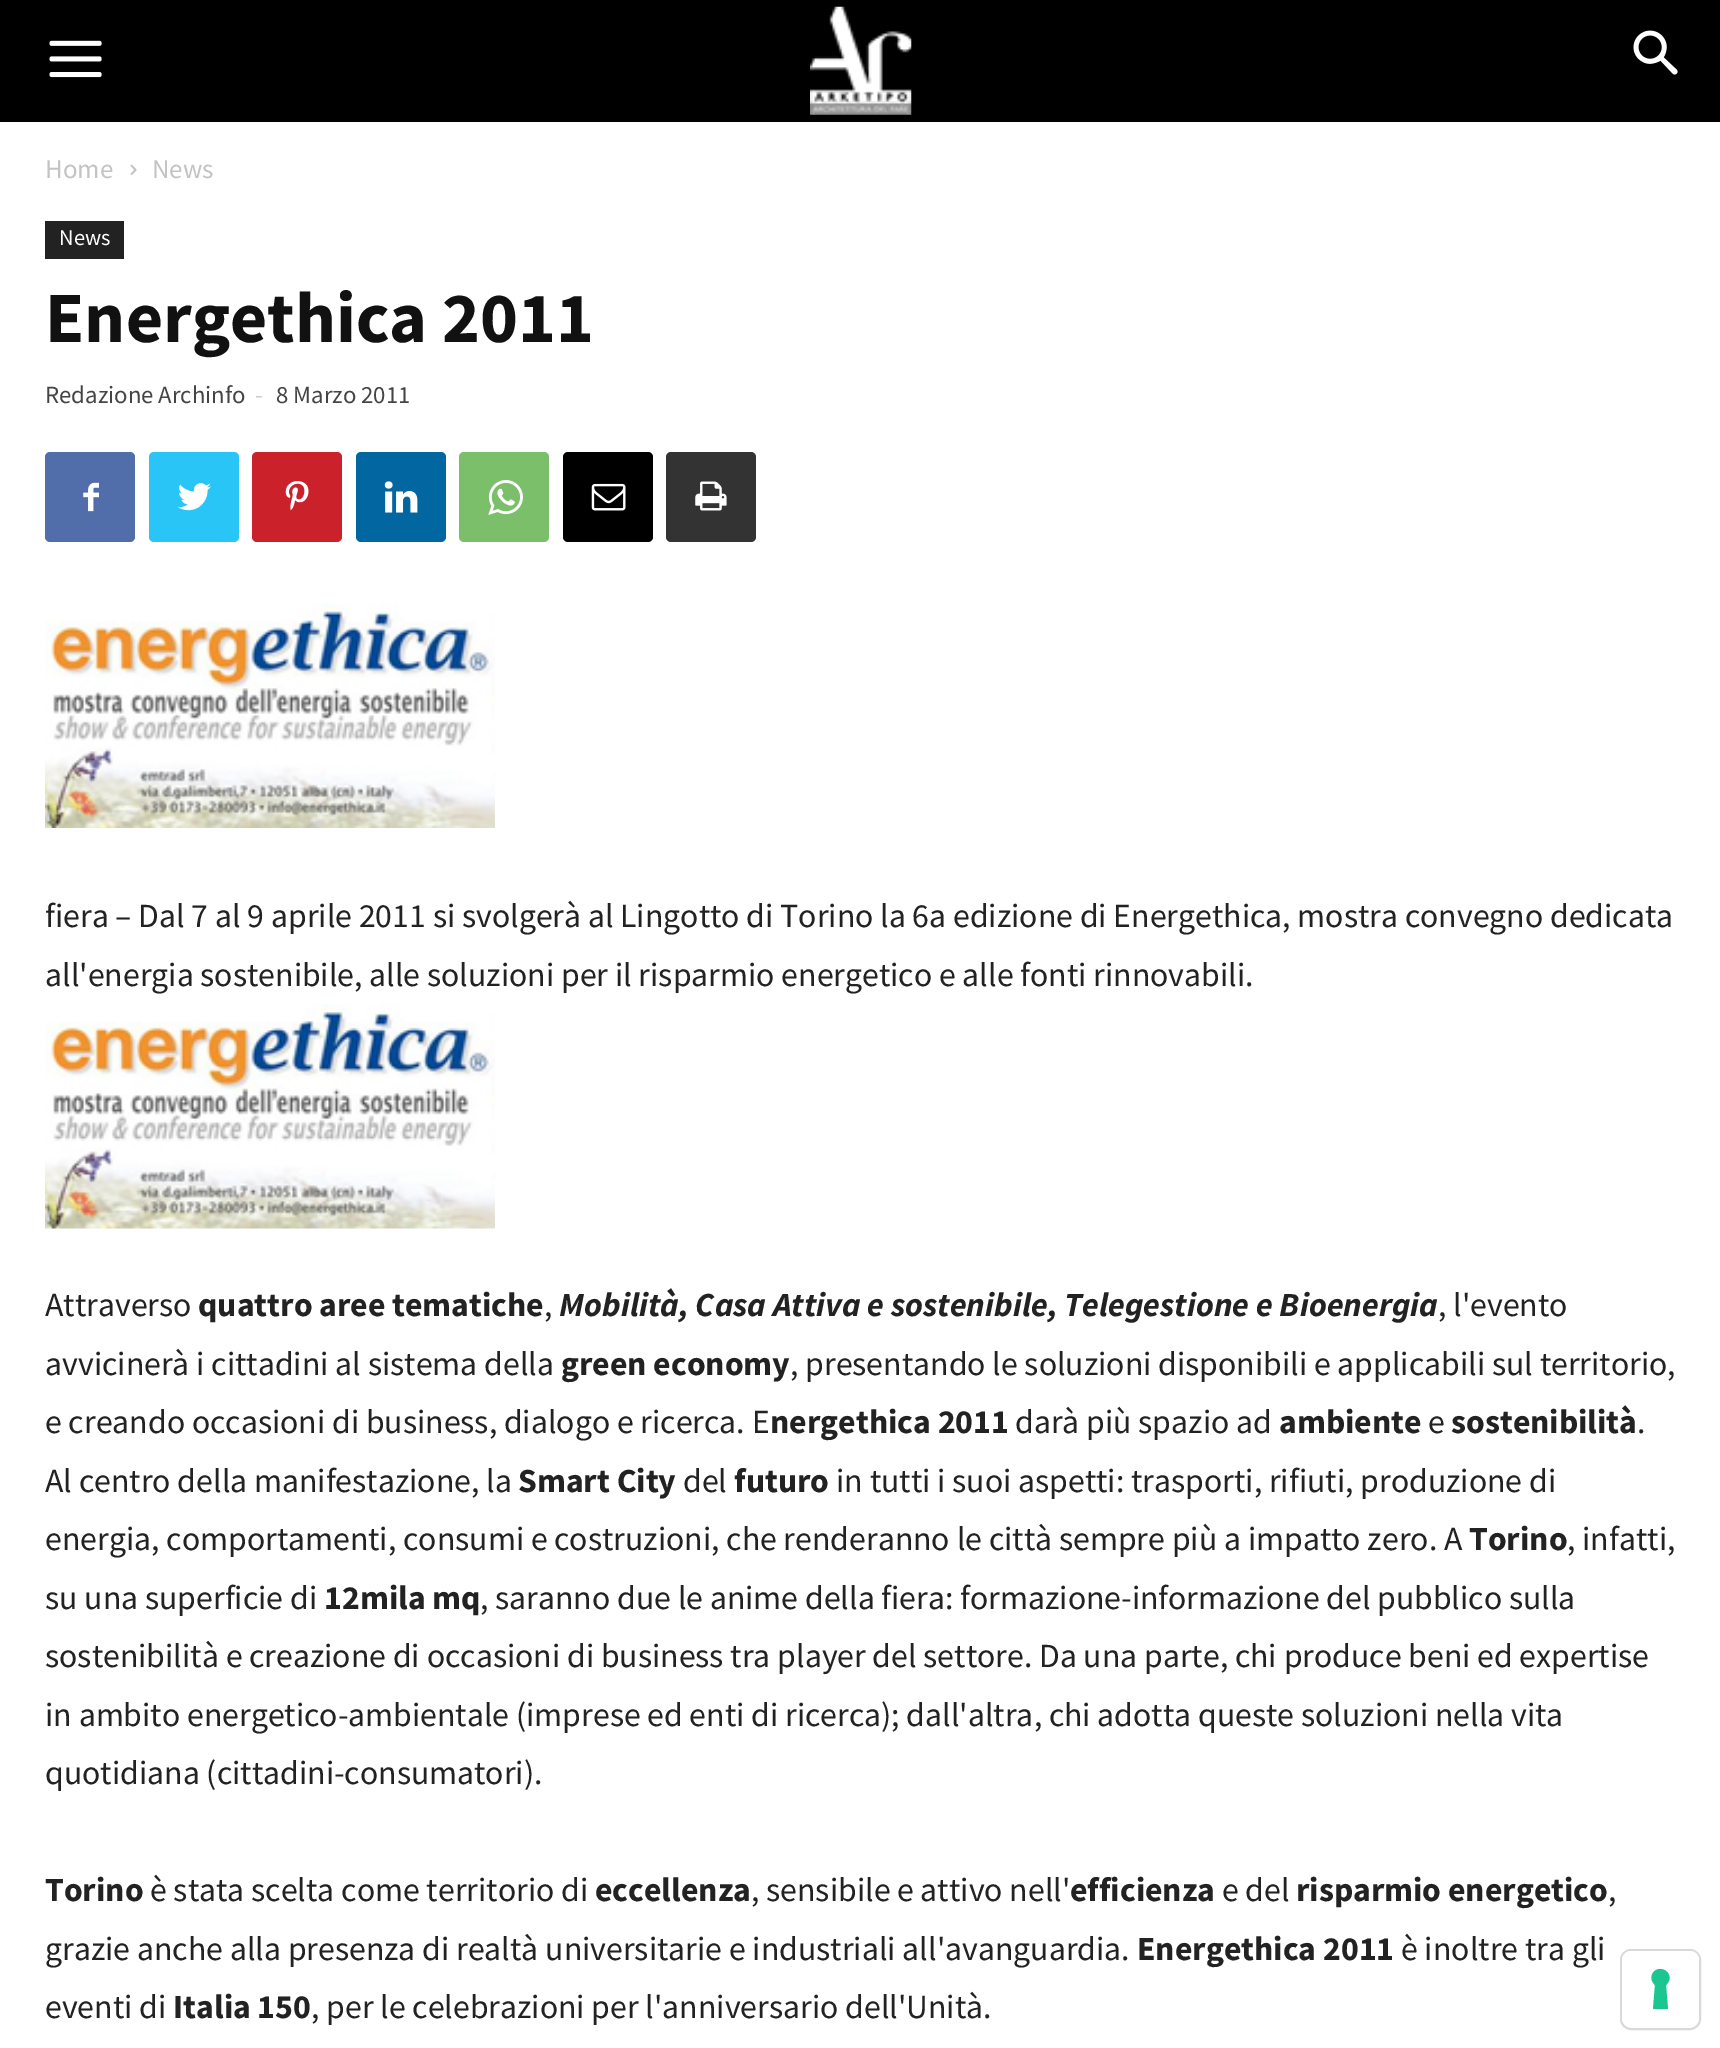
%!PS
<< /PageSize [1720 2048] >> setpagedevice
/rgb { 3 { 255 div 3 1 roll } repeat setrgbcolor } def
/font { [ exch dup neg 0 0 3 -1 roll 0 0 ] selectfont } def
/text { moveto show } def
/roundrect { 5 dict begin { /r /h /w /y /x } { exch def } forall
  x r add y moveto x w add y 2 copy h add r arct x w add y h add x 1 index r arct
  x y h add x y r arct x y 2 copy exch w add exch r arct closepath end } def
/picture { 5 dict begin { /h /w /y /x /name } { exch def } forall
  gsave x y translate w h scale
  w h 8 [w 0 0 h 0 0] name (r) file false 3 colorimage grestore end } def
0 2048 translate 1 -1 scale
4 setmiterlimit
255 255 255 rgb
0 0 1720 2048 rectfill
0 0 0 rgb
0 0 1720 122 rectfill
(img_01.rgb) 49 40 53 38 picture
(img_02.rgb) 810 6 102 109 picture
(img_03.rgb) 1633 30 45 45 picture
(img_04.rgb) 130 164 7 11 picture
34 34 34 rgb
45 221 79 38 rectfill
81 110 171 rgb
45 452 90 90 5 roundrect fill
(img_05.rgb) 83 482 16 30 picture
41 197 246 rgb
149 452 90 90 5 roundrect fill
(img_06.rgb) 178 483 33 28 picture
202 33 42 rgb
252 452 90 90 5 roundrect fill
(img_07.rgb) 285 481 24 30 picture
2 102 160 rgb
356 452 90 90 5 roundrect fill
(img_08.rgb) 384 481 34 32 picture
123 191 106 rgb
459 452 90 90 5 roundrect fill
(img_09.rgb) 488 480 35 35 picture
0 0 0 rgb
563 452 90 90 5 roundrect fill
(img_10.rgb) 591 483 35 28 picture
51 51 51 rgb
666 452 90 90 5 roundrect fill
(img_11.rgb) 695 481 32 30 picture
(img_12.rgb) 45 603 450 225 picture
(img_13.rgb) 45 1004 450 225 picture
217 217 217 rgb
2 setlinewidth
1621 1950 79 79 10 roundrect stroke
255 255 255 rgb
1622 1951 77 76 9 roundrect fill
28 198 145 rgb
1660 1969 moveto 9 0 13 10 6 16 rcurveto 2 24 rlineto -15 0 rlineto 2 -24 rlineto -7 -6 -3 -16 5 -16 rcurveto closepath eofill
/SourceSansPro-Regular 27 font
195 195 195 rgb
(Home) 45 178 text
(News) 152 178 text
/SourceSansPro-Regular 22.5 font
255 255 255 rgb
(News) 59 245 text
/SourceSansPro-Bold 72 font
17 17 17 rgb
(Energethica 2011) 45 342 text
/SourceSansPro-Regular 24.75 font
68 68 68 rgb
(Redazione Archinfo) 45 403 text
204 204 204 rgb
(-) 255 403 text
68 68 68 rgb
(8 Marzo 2011) 276 403 text
/SourceSansPro-Regular 33.75 font
34 34 34 rgb
(fiera – Dal 7 al 9 aprile 2011 si svolgerà al Lingotto di Torino la 6a edizione di Energethica, mostra convegno dedicata) 45 927 text
(all'energia sostenibile, alle soluzioni per il risparmio energetico e alle fonti rinnovabili.) 45 986 text
(Attraverso) 45 1316 text
/SourceSansPro-Bold 33.75 font
(quattro aree tematiche) 198 1316 text
/SourceSansPro-Regular 33.75 font
(,) 544 1316 text
/SourceSansPro-BoldItalic 33.75 font
(Mobilità, Casa Attiva e sostenibile, Telegestione e Bioenergia) 559 1316 text
/SourceSansPro-Regular 33.75 font
(, l'evento) 1438 1316 text
(avvicinerà i cittadini al sistema della) 45 1375 text
/SourceSansPro-Bold 33.75 font
(green economy) 561 1375 text
/SourceSansPro-Regular 33.75 font
(, presentando le soluzioni disponibili e applicabili sul territorio,) 790 1375 text
(e creando occasioni di business, dialogo e ricerca. E) 45 1433 text
/SourceSansPro-Bold 33.75 font
(nergethica 2011) 770 1433 text
/SourceSansPro-Regular 33.75 font
(darà più spazio ad) 1015 1433 text
/SourceSansPro-Bold 33.75 font
(ambiente) 1279 1433 text
/SourceSansPro-Regular 33.75 font
(e) 1428 1433 text
/SourceSansPro-Bold 33.75 font
(sostenibilità) 1451 1433 text
/SourceSansPro-Regular 33.75 font
(.) 1637 1433 text
(Al centro della manifestazione, la) 45 1492 text
/SourceSansPro-Bold 33.75 font
(Smart City) 518 1492 text
/SourceSansPro-Regular 33.75 font
(del) 683 1492 text
/SourceSansPro-Bold 33.75 font
(futuro) 734 1492 text
/SourceSansPro-Regular 33.75 font
(in tutti i suoi aspetti: trasporti, rifiuti, produzione di) 836 1492 text
(energia, comportamenti, consumi e costruzioni, che renderanno le città sempre più a impatto zero. A) 45 1550 text
/SourceSansPro-Bold 33.75 font
(Torino) 1469 1550 text
/SourceSansPro-Regular 33.75 font
(, infatti,) 1567 1550 text
(su una superficie di) 45 1609 text
/SourceSansPro-Bold 33.75 font
(12mila mq) 324 1609 text
/SourceSansPro-Regular 33.75 font
(, saranno due le anime della fiera: formazione-informazione del pubblico sulla) 480 1609 text
(sostenibilità e creazione di occasioni di business tra player del settore. Da una parte, chi produce beni ed expertise) 45 1667 text
(in ambito energetico-ambientale \(imprese ed enti di ricerca\); dall'altra, chi adotta queste soluzioni nella vita) 45 1726 text
(quotidiana \(cittadini-consumatori\).) 45 1784 text
/SourceSansPro-Bold 33.75 font
(Torino) 45 1901 text
/SourceSansPro-Regular 33.75 font
(è stata scelta come territorio di) 150 1901 text
/SourceSansPro-Bold 33.75 font
(eccellenza) 595 1901 text
/SourceSansPro-Regular 33.75 font
(, sensibile e attivo nell') 751 1901 text
/SourceSansPro-Bold 33.75 font
(efficienza) 1070 1901 text
/SourceSansPro-Regular 33.75 font
(e del) 1222 1901 text
/SourceSansPro-Bold 33.75 font
(risparmio energetico) 1296 1901 text
/SourceSansPro-Regular 33.75 font
(,) 1608 1901 text
(grazie anche alla presenza di realtà universitarie e industriali all'avanguardia.) 45 1960 text
/SourceSansPro-Bold 33.75 font
(Energethica 2011) 1137 1960 text
/SourceSansPro-Regular 33.75 font
(è inoltre tra gli) 1401 1960 text
(eventi di) 45 2018 text
/SourceSansPro-Bold 33.75 font
(Italia 150) 173 2018 text
/SourceSansPro-Regular 33.75 font
(, per le celebrazioni per l'anniversario dell'Unità.) 311 2018 text
showpage
